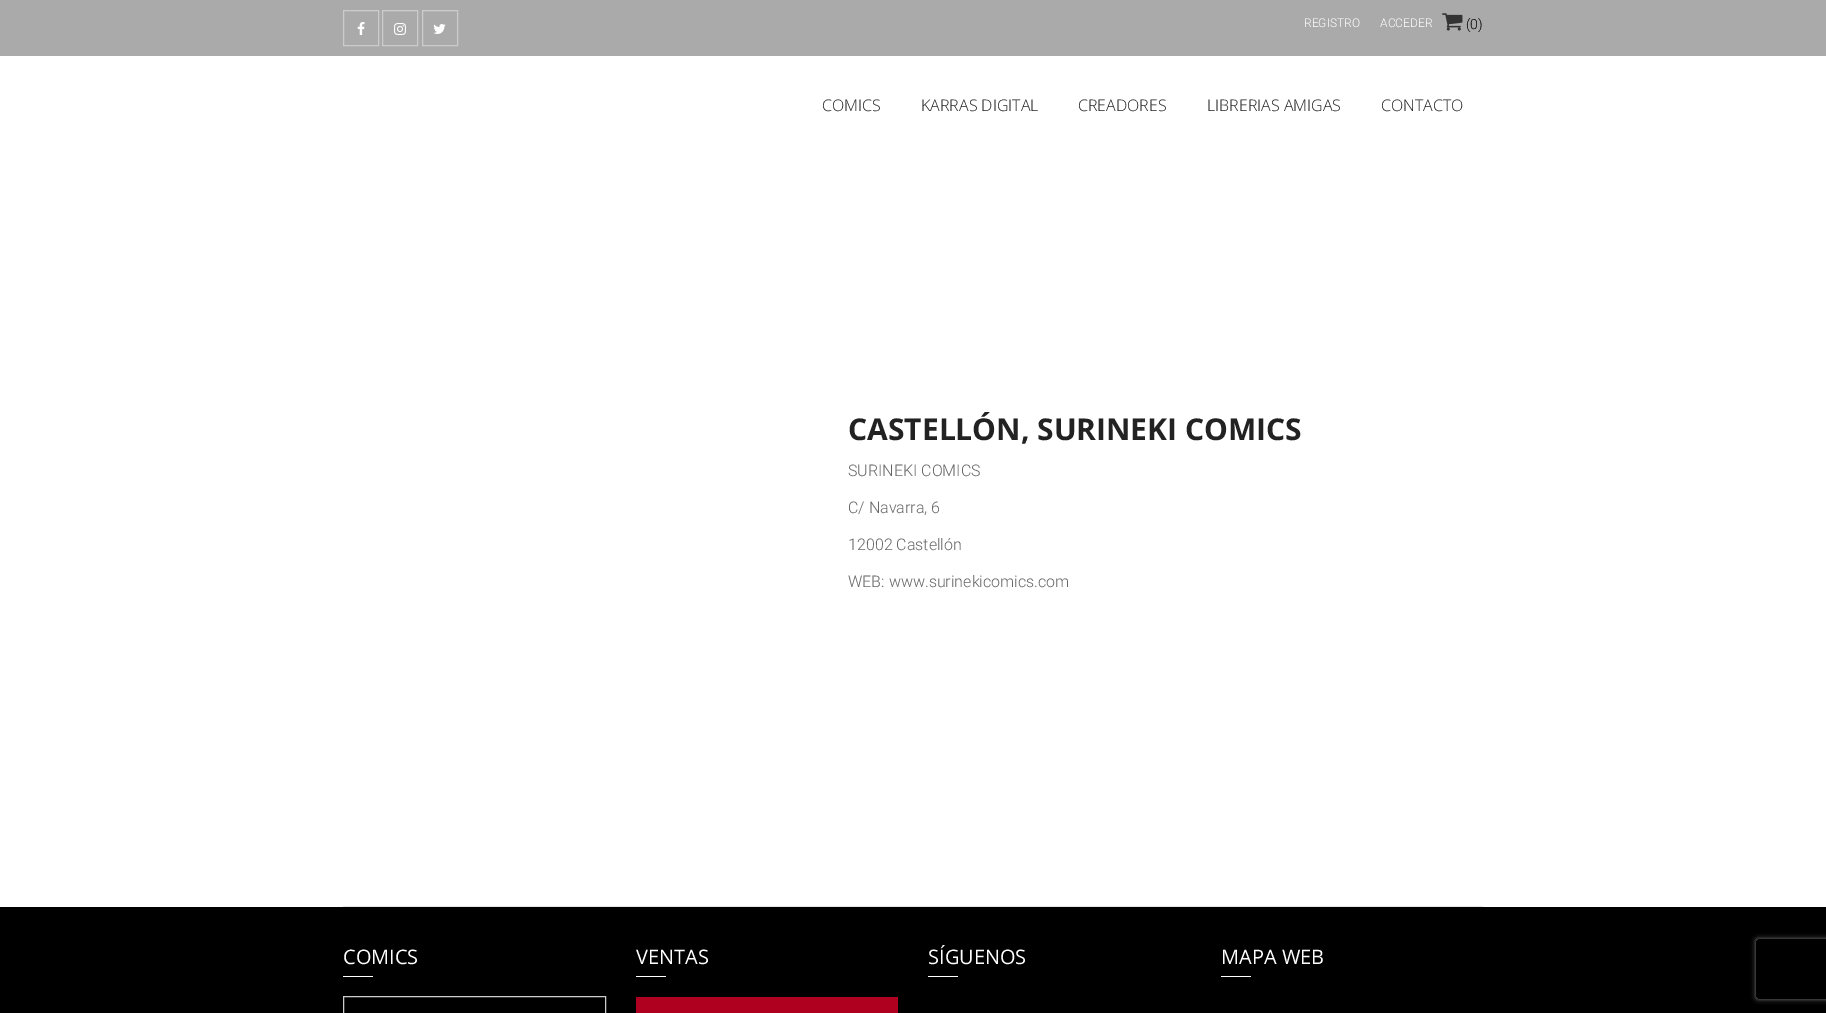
%!PS
<< /PageSize [1826 1013] /PageUsesTransparency true >> setpagedevice
/rgb { 3 { 255 div 3 1 roll } repeat setrgbcolor } def
/font { [ exch dup neg 0 0 3 -1 roll 0 0 ] selectfont } def
/text { moveto show } def
/alpha { dup .setfillconstantalpha .setstrokeconstantalpha } def
/roundrect { 5 dict begin { /r /h /w /y /x } { exch def } forall
  x r add y moveto x w add y 2 copy h add r arct x w add y h add x 1 index r arct
  x y h add x y r arct x y 2 copy exch w add exch r arct closepath end } def
/shadow { 12 dict begin { /a /b /q /h /w /y /x } { exch def } forall gsave /was 0 def
  9 -2 -9 { dup b mul 4 div /e exch def 1 sub .425 mul 2.718 exch exp 1 add a .99 .min exch div /now exch def
    1 1 now sub 1 was sub div sub alpha /was now def
    w h .min e 2 mul add 0 gt { x e sub y e sub w e 2 mul add h e 2 mul add
      q e add b .6 mul add w h .min 2 div e add .min 0 .max roundrect fill } if } for grestore end } def
/picture { 5 dict begin { /h /w /y /x /name } { exch def } forall
  gsave x y translate w h scale
  w h 8 [w 0 0 h 0 0] name (r) file false 3 colorimage grestore end } def
0 .pushpdf14devicefilter
0 1013 translate 1 -1 scale
4 setmiterlimit
255 255 255 rgb
0 0 1826 1013 rectfill
170 170 170 rgb
0 0 1826 56 rectfill
204 204 204 rgb
343.5 10.5 35 35 rectstroke
(img_01.rgb) 357 22 8 13 picture
382.5 10.5 35 35 rectstroke
(img_02.rgb) 394 23 12 12 picture
422.5 10.5 35 35 rectstroke
(img_03.rgb) 433 24 13 10 picture
(img_04.rgb) 1442 13 21 18 picture
229 229 229 rgb
343 906 1140 1 rectfill
0 0 0 rgb
0 907 1826 106 rectfill
255 255 255 rgb
343 976 30 1 rectfill
204 204 204 rgb
343.5 996.5 262 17 rectstroke
255 255 255 rgb
636 976 30 1 rectfill
176 0 32 rgb
636 997 262 16 rectfill
255 255 255 rgb
928 976 30 1 rectfill
1221 976 30 1 rectfill
gsave
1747 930 moveto 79 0 rlineto 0 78 rlineto -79 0 rlineto closepath 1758 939 moveto 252 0 rlineto 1 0 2 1 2 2 rcurveto 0 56 rlineto 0 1 -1 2 -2 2 rcurveto -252 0 rlineto -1 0 -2 -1 -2 -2 rcurveto 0 -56 rlineto 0 -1 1 -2 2 -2 rcurveto closepath eoclip newpath
128 128 128 rgb
1756 939 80 60 2 2.5 1 shadow
grestore
/Roboto-Light 12 font
(REGISTRO) 1304 27 text
(ACCEDER) 1380 27 text
/Roboto-Light 14 font
0 0 0 rgb
(\(0\)) 1466 29 text
/OpenSans-Light 16 font
34 34 34 rgb
(COMICS) 822 111 text
(KARRAS DIGITAL) 921 111 text
(CREADORES) 1078 111 text
(LIBRERIAS AMIGAS) 1207 111 text
(CONTACTO) 1381 111 text
/OpenSans-Bold 30 font
(CASTELLÓN, SURINEKI COMICS) 848 440 text
/Roboto-Light 16 font
102 102 102 rgb
(SURINEKI COMICS) 848 476 text
(C/ Navarra, 6) 848 513 text
(12002 Castellón) 848 550 text
(WEB: www.surinekicomics.com) 848 587 text
/OpenSans-Regular 20 font
255 255 255 rgb
(COMICS) 343 964 text
(VENTAS) 636 964 text
(SÍGUENOS) 928 964 text
(MAPA WEB) 1221 964 text
.poppdf14devicefilter showpage
